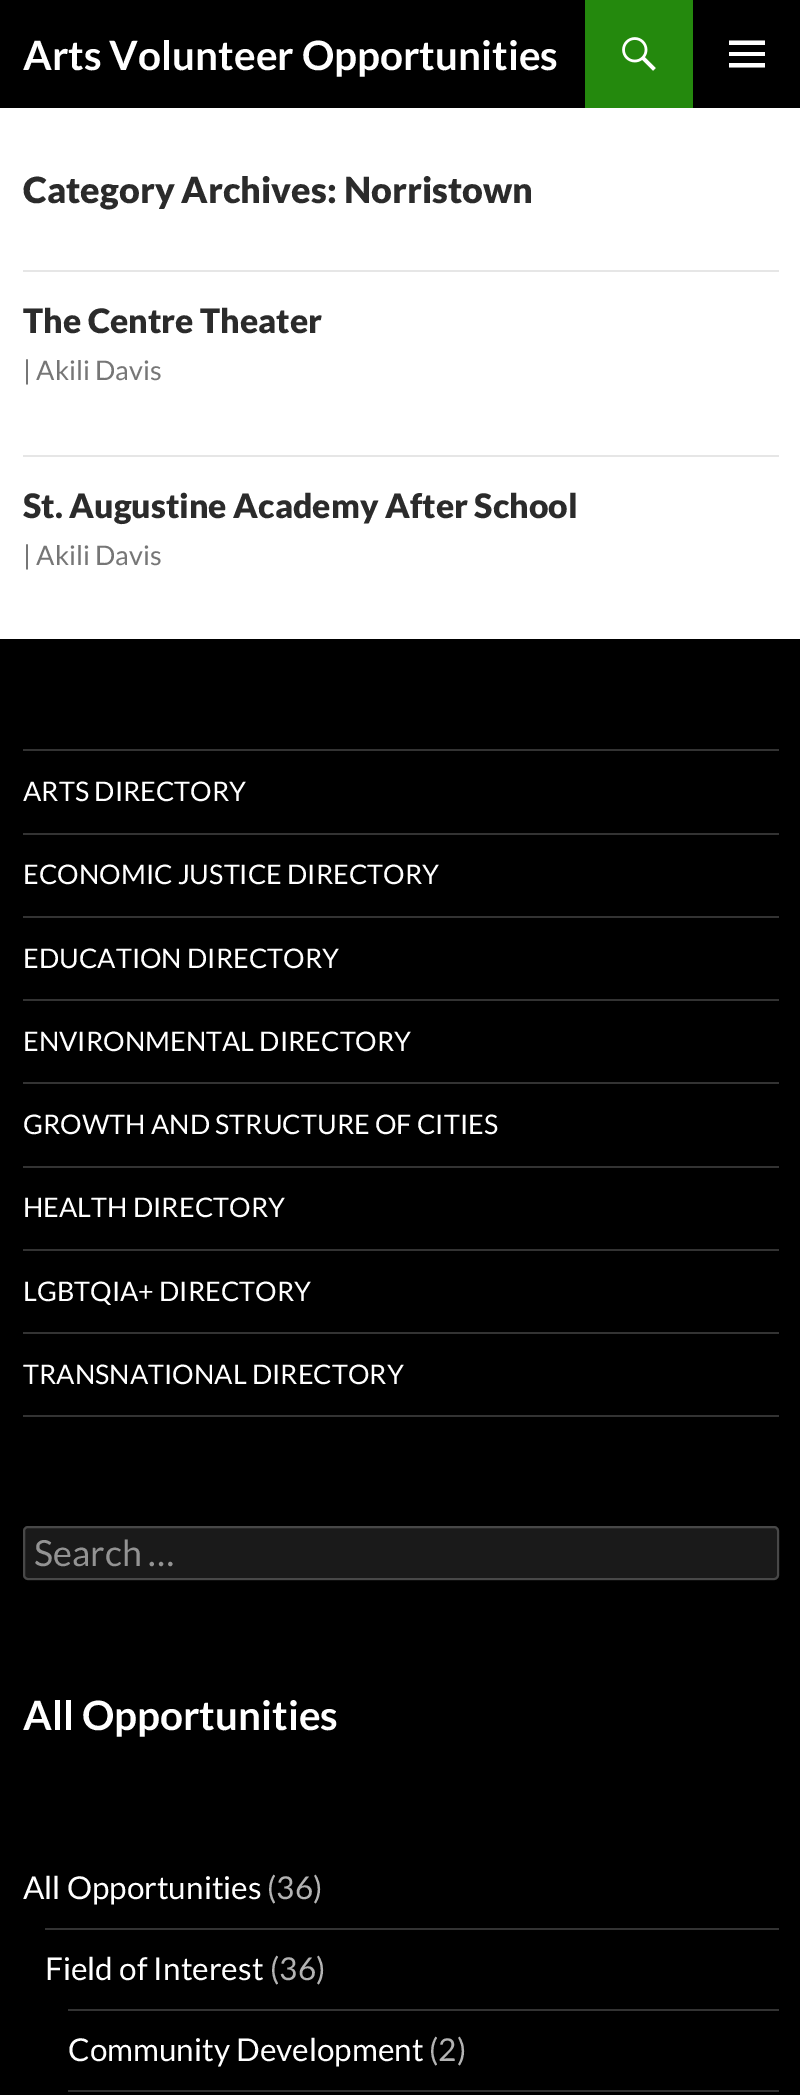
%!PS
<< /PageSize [800 2095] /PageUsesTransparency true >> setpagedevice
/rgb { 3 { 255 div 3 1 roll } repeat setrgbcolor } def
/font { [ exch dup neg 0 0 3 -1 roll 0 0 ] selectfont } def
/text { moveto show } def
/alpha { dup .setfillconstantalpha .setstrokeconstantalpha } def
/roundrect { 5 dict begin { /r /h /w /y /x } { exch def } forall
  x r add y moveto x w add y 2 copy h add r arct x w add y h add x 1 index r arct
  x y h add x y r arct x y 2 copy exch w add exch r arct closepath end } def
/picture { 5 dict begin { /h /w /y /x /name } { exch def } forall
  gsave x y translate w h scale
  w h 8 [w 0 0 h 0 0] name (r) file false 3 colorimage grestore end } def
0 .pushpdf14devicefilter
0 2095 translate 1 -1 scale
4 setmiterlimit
255 255 255 rgb
0 0 800 2095 rectfill
0 0 0 rgb
0 0 800 108 rectfill
36 137 13 rgb
585 0 108 108 rectfill
(img_01.rgb) 622 37 34 34 picture
255 255 255 rgb
729 67.5 moveto 0 -4.5 rlineto 36 0 rlineto 0 4.5 rlineto closepath 729 56 moveto 0 -4 rlineto 36 0 rlineto 0 4 rlineto closepath 729 45 moveto 0 -4.5 rlineto 36 0 rlineto 0 4.5 rlineto closepath fill
230 230 230 rgb
23 270 756 2 rectfill
23 455 756 2 rectfill
0 0 0 rgb
0 639 800 1456 rectfill
51 51 51 rgb
23 1415 756 2 rectfill
23 749 756 2 rectfill
23 833 756 2 rectfill
23 916 756 2 rectfill
23 999 756 2 rectfill
23 1082 756 2 rectfill
23 1166 756 2 rectfill
23 1249 756 2 rectfill
23 1332 756 2 rectfill
26 26 26 rgb
23 1526 756 54 5 roundrect fill
0.2 alpha
255 255 255 rgb
2 setlinewidth
24 1527 754 52 4 roundrect stroke
1 alpha
51 51 51 rgb
45 1928 734 2 rectfill
68 2009 711 2 rectfill
68 2090 711 2 rectfill
/Lato-Bold 40.5 font
255 255 255 rgb
(Arts Volunteer Opportunities) 23 70 text
/Lato-Black 36 font
43 43 43 rgb
(Category Archives: Norristown) 23 203 text
/Lato-Black 33.75 font
(The Centre Theater) 23 333 text
/Lato-Regular 27 font
118 118 118 rgb
(| Akili Davis) 23 380 text
/Lato-Black 33.75 font
43 43 43 rgb
(St. Augustine Academy After School) 23 518 text
/Lato-Regular 27 font
118 118 118 rgb
(| Akili Davis) 23 565 text
255 255 255 rgb
(ARTS DIRECTORY) 23 801 text
(ECONOMIC JUSTICE DIRECTORY) 23 884 text
(EDUCATION DIRECTORY) 23 968 text
(ENVIRONMENTAL DIRECTORY) 23 1051 text
(GROWTH AND STRUCTURE OF CITIES) 23 1134 text
(HEALTH DIRECTORY) 23 1217 text
(LGBTQIA+ DIRECTORY) 23 1301 text
(TRANSNATIONAL DIRECTORY) 23 1384 text
/Lato-Regular 36 font
147 147 147 rgb
(Search …) 34 1566 text
/Lato-Bold 40.5 font
255 255 255 rgb
(All Opportunities) 23 1730 text
/Lato-Regular 31.5 font
(All Opportunities) 23 1899 text
179 179 179 rgb
(\(36\)) 267 1899 text
255 255 255 rgb
(Field of Interest) 45 1980 text
179 179 179 rgb
(\(36\)) 270 1980 text
255 255 255 rgb
(Community Development) 68 2061 text
179 179 179 rgb
(\(2\)) 429 2061 text
.poppdf14devicefilter showpage
